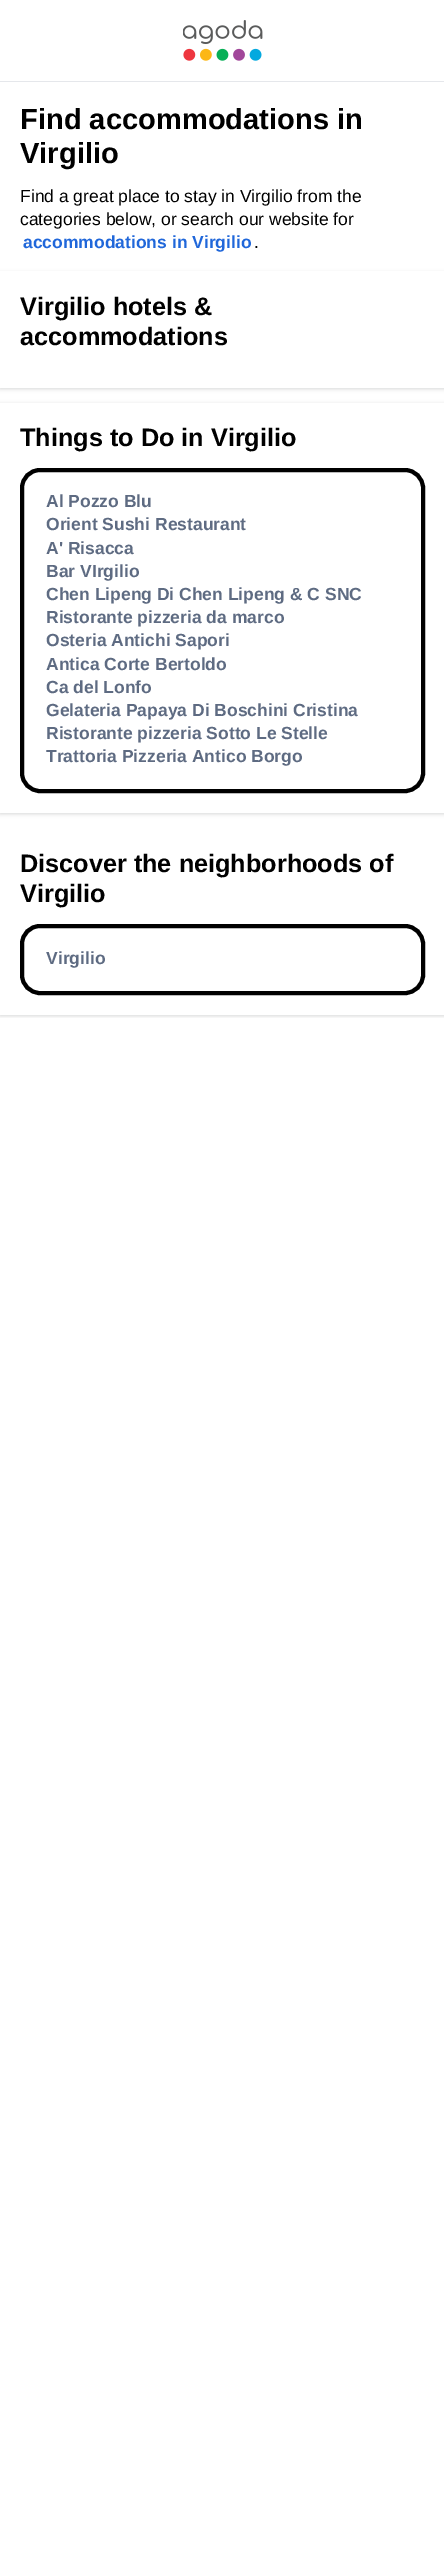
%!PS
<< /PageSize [444 2555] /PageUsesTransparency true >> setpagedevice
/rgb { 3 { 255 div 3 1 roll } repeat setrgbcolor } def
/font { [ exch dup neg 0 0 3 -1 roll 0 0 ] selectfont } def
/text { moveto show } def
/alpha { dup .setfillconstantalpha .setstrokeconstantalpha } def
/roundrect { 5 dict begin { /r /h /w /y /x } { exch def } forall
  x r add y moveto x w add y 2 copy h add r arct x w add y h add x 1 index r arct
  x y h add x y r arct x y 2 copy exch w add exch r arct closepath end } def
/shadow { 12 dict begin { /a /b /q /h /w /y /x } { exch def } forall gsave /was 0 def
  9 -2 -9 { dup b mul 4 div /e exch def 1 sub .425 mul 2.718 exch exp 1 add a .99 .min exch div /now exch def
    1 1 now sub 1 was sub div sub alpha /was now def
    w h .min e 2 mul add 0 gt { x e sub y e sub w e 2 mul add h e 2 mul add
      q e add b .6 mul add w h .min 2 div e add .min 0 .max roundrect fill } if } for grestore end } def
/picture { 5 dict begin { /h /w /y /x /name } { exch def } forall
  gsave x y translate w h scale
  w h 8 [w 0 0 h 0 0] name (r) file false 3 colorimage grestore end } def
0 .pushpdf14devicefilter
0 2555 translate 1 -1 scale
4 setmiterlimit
255 255 255 rgb
0 0 444 2555 rectfill
(img_01.rgb) 183 20 80 41 picture
229 231 235 rgb
0 81 444 1 rectfill
4 7 10 rgb
0 273 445 116 0 2 0.16 shadow
255 255 255 rgb
0 271 444 117 rectfill
4 7 10 rgb
0 404 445 410 0 2 0.16 shadow
255 255 255 rgb
0 403 444 410 rectfill
0 0 0 rgb
4 setlinewidth
22 470 401 321 18 roundrect stroke
gsave
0 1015 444 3 rectclip
4 7 10 rgb
0 829 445 187 0 2 0.16 shadow
grestore
22 926 401 67 18 roundrect stroke
/LiberationSans-Bold 29.1 font
(Find accommodations in) 20 129 text
(Virgilio) 20 163 text
/LiberationSans-Regular 17.5 font
(Find a great place to stay in Virgilio from the) 20 202 text
(categories below, or search our website for) 20 225 text
/LiberationSans-Bold 17.5 font
32 103 218 rgb
(accommodations in Virgilio) 23 248 text
/LiberationSans-Regular 17.5 font
0 0 0 rgb
(.) 254 248 text
/LiberationSans-Bold 25.25 font
(Virgilio hotels &) 20 315 text
(accommodations) 20 345 text
(Things to Do in Virgilio) 20 446 text
/LiberationSans-Bold 17.5 font
94 107 130 rgb
(Al Pozzo Blu) 46 507 text
(Orient Sushi Restaurant) 46 530 text
(A' Risacca) 46 554 text
(Bar VIrgilio) 46 577 text
(Chen Lipeng Di Chen Lipeng & C SNC) 46 600 text
(Ristorante pizzeria da marco) 46 623 text
(Osteria Antichi Sapori) 46 646 text
(Antica Corte Bertoldo) 46 670 text
(Ca del Lonfo) 46 693 text
(Gelateria Papaya Di Boschini Cristina) 46 716 text
(Ristorante pizzeria Sotto Le Stelle) 46 739 text
(Trattoria Pizzeria Antico Borgo) 46 762 text
/LiberationSans-Bold 25.25 font
0 0 0 rgb
(Discover the neighborhoods of) 20 872 text
(Virgilio) 20 902 text
/LiberationSans-Bold 17.5 font
94 107 130 rgb
(Virgilio) 46 964 text
.poppdf14devicefilter showpage
